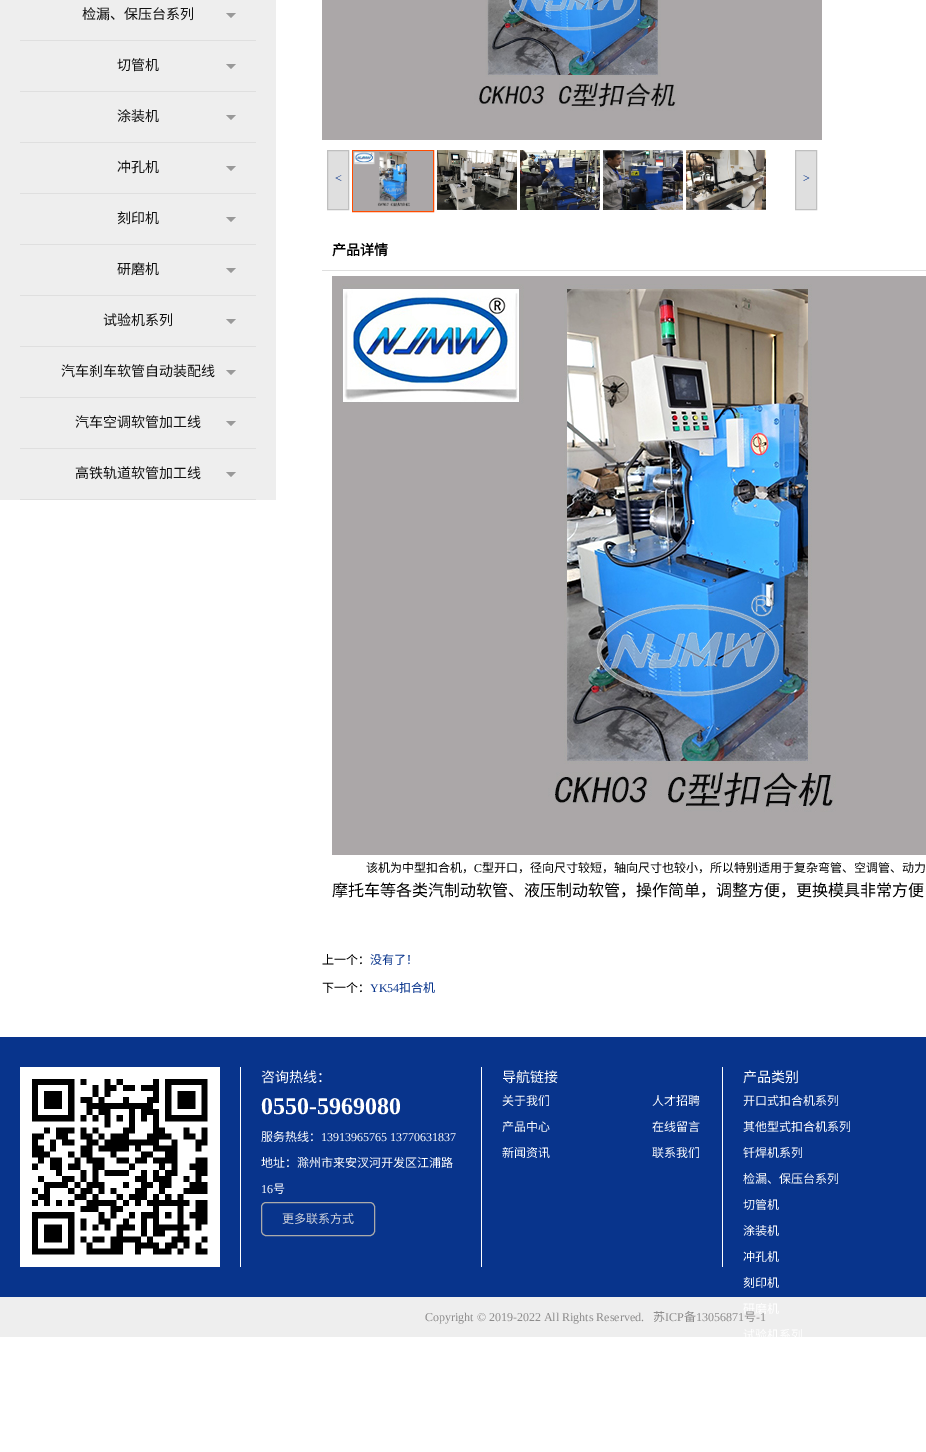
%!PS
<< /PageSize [926 1452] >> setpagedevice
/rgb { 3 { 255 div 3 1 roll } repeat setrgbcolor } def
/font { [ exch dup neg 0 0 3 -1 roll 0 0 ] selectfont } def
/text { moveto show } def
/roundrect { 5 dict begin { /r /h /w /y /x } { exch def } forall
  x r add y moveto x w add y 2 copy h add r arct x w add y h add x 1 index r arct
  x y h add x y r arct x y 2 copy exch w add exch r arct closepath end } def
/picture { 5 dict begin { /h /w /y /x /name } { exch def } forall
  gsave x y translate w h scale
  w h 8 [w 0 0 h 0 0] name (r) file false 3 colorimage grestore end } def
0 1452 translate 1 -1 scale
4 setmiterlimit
255 255 255 rgb
0 0 926 1452 rectfill
238 238 238 rgb
0 0 276 500 rectfill
223 223 223 rgb
20 40 236 1 rectfill
153 153 153 rgb
226 13 moveto 10 0 rlineto -5 5 rlineto closepath fill
223 223 223 rgb
20 91 236 1 rectfill
153 153 153 rgb
226 64 moveto 10 0 rlineto -5 5 rlineto closepath fill
223 223 223 rgb
20 142 236 1 rectfill
153 153 153 rgb
226 115 moveto 10 0 rlineto -5 5 rlineto closepath fill
223 223 223 rgb
20 193 236 1 rectfill
153 153 153 rgb
226 166 moveto 10 0 rlineto -5 5 rlineto closepath fill
223 223 223 rgb
20 244 236 1 rectfill
153 153 153 rgb
226 217 moveto 10 0 rlineto -5 5 rlineto closepath fill
223 223 223 rgb
20 295 236 1 rectfill
153 153 153 rgb
226 268 moveto 10 0 rlineto -5 5 rlineto closepath fill
223 223 223 rgb
20 346 236 1 rectfill
153 153 153 rgb
226 319 moveto 10 0 rlineto -5 5 rlineto closepath fill
223 223 223 rgb
20 397 236 1 rectfill
153 153 153 rgb
226 370 moveto 10 0 rlineto -5 5 rlineto closepath fill
223 223 223 rgb
20 448 236 1 rectfill
153 153 153 rgb
226 421 moveto 10 0 rlineto -5 5 rlineto closepath fill
223 223 223 rgb
20 499 236 1 rectfill
153 153 153 rgb
226 472 moveto 10 0 rlineto -5 5 rlineto closepath fill
(img_01.rgb) 322 0 500 140 picture
223 223 223 rgb
327.5 150.5 moveto 21 0 rlineto 0 59 rlineto -21 0 rlineto closepath gsave fill grestore
191 191 191 rgb
stroke
255 76 0 rgb
352.5 150.5 81 61 rectstroke
(img_02.rgb) 353 151 80 60 picture
(img_03.rgb) 437 150 80 60 picture
(img_04.rgb) 520 150 80 60 picture
(img_05.rgb) 603 150 80 60 picture
(img_06.rgb) 686 150 80 60 picture
223 223 223 rgb
795.5 150.5 moveto 21 0 rlineto 0 59 rlineto -21 0 rlineto closepath gsave fill grestore
191 191 191 rgb
stroke
223 223 223 rgb
322 270 604 1 rectfill
(img_07.rgb) 332 276 594 579 picture
8 52 140 rgb
0 1037 926 260 rectfill
255 255 255 rgb
240 1067 1 200 rectfill
(img_08.rgb) 20 1067 200 200 picture
481 1067 1 200 rectfill
170 170 170 rgb
261.5 1202.5 113 33 4.5 roundrect stroke
255 255 255 rgb
722 1067 1 200 rectfill
238 238 238 rgb
0 1297 926 40 rectfill
/NotoSansCJKSC-Regular 14 font
17 17 17 rgb
(检漏、保压台系列) 82 19 text
(切管机) 117 70 text
(涂装机) 117 121 text
(冲孔机) 117 172 text
(刻印机) 117 223 text
(研磨机) 117 274 text
(试验机系列) 103 325 text
(汽车刹车软管自动装配线) 61 376 text
(汽车空调软管加工线) 75 427 text
(高铁轨道软管加工线) 75 478 text
/LiberationSerif-Regular 12 font
8 52 140 rgb
(<) 335 182 text
(>) 803 182 text
/NotoSansCJKSC-Bold 14 font
0 0 0 rgb
(产品详情) 332 255 text
/NotoSansCJKSC-Regular 12 font
(该机为中型扣合机，) 366 872 text
/LiberationSerif-Regular 12 font
(C) 474 872 text
/NotoSansCJKSC-Regular 12 font
(型开口，径向尺寸较短，轴向尺寸也较小，所以特别适用于复杂弯管、空调管、动力) 482 872 text
/NotoSansCJKSC-Regular 16 font
(摩托车等各类汽制动软管、液压制动软管，操作简单，调整方便，更换模具非常方便) 332 896 text
/NotoSansCJKSC-Regular 12 font
(上一个：) 322 964 text
8 52 140 rgb
(没有了！) 370 964 text
0 0 0 rgb
(下一个：) 322 992 text
/LiberationSerif-Regular 12 font
8 52 140 rgb
(YK54) 370 992 text
/NotoSansCJKSC-Regular 12 font
(扣合机) 399 992 text
/NotoSansCJKSC-Regular 14 font
255 255 255 rgb
(咨询热线：) 261 1082 text
/LiberationSerif-Bold 24 font
(0550-5969080) 261 1114 text
/NotoSansCJKSC-Regular 12 font
(服务热线：) 261 1141 text
/LiberationSerif-Regular 12 font
(13913965765 13770631837) 321 1141 text
/NotoSansCJKSC-Regular 12 font
(地址：滁州市来安汊河开发区江浦路) 261 1167 text
/LiberationSerif-Regular 12 font
(16) 261 1193 text
/NotoSansCJKSC-Regular 12 font
(号) 273 1193 text
211 214 221 rgb
(更多联系方式) 282 1223 text
/NotoSansCJKSC-Regular 14 font
255 255 255 rgb
(导航链接) 502 1082 text
/NotoSansCJKSC-Regular 12 font
(关于我们) 502 1105 text
(产品中心) 502 1131 text
(新闻资讯) 502 1157 text
(人才招聘) 652 1105 text
(在线留言) 652 1131 text
(联系我们) 652 1157 text
/NotoSansCJKSC-Regular 14 font
(产品类别) 743 1082 text
/NotoSansCJKSC-Regular 12 font
(开口式扣合机系列) 743 1105 text
(其他型式扣合机系列) 743 1131 text
(钎焊机系列) 743 1157 text
(检漏、保压台系列) 743 1183 text
(切管机) 743 1209 text
(涂装机) 743 1235 text
(冲孔机) 743 1261 text
(刻印机) 743 1287 text
(研磨机) 743 1313 text
(试验机系列) 743 1339 text
/LiberationSerif-Regular 12 font
141 140 140 rgb
(Copyright © 2019-2022 All Rights Reserved.) 425 1321 text
/NotoSansCJKSC-Regular 12 font
(苏) 653 1321 text
/LiberationSerif-Regular 12 font
(ICP) 665 1321 text
/NotoSansCJKSC-Regular 12 font
(备) 684 1321 text
/LiberationSerif-Regular 12 font
(13056871) 696 1321 text
/NotoSansCJKSC-Regular 12 font
(号) 744 1321 text
/LiberationSerif-Regular 12 font
(-1) 756 1321 text
showpage
